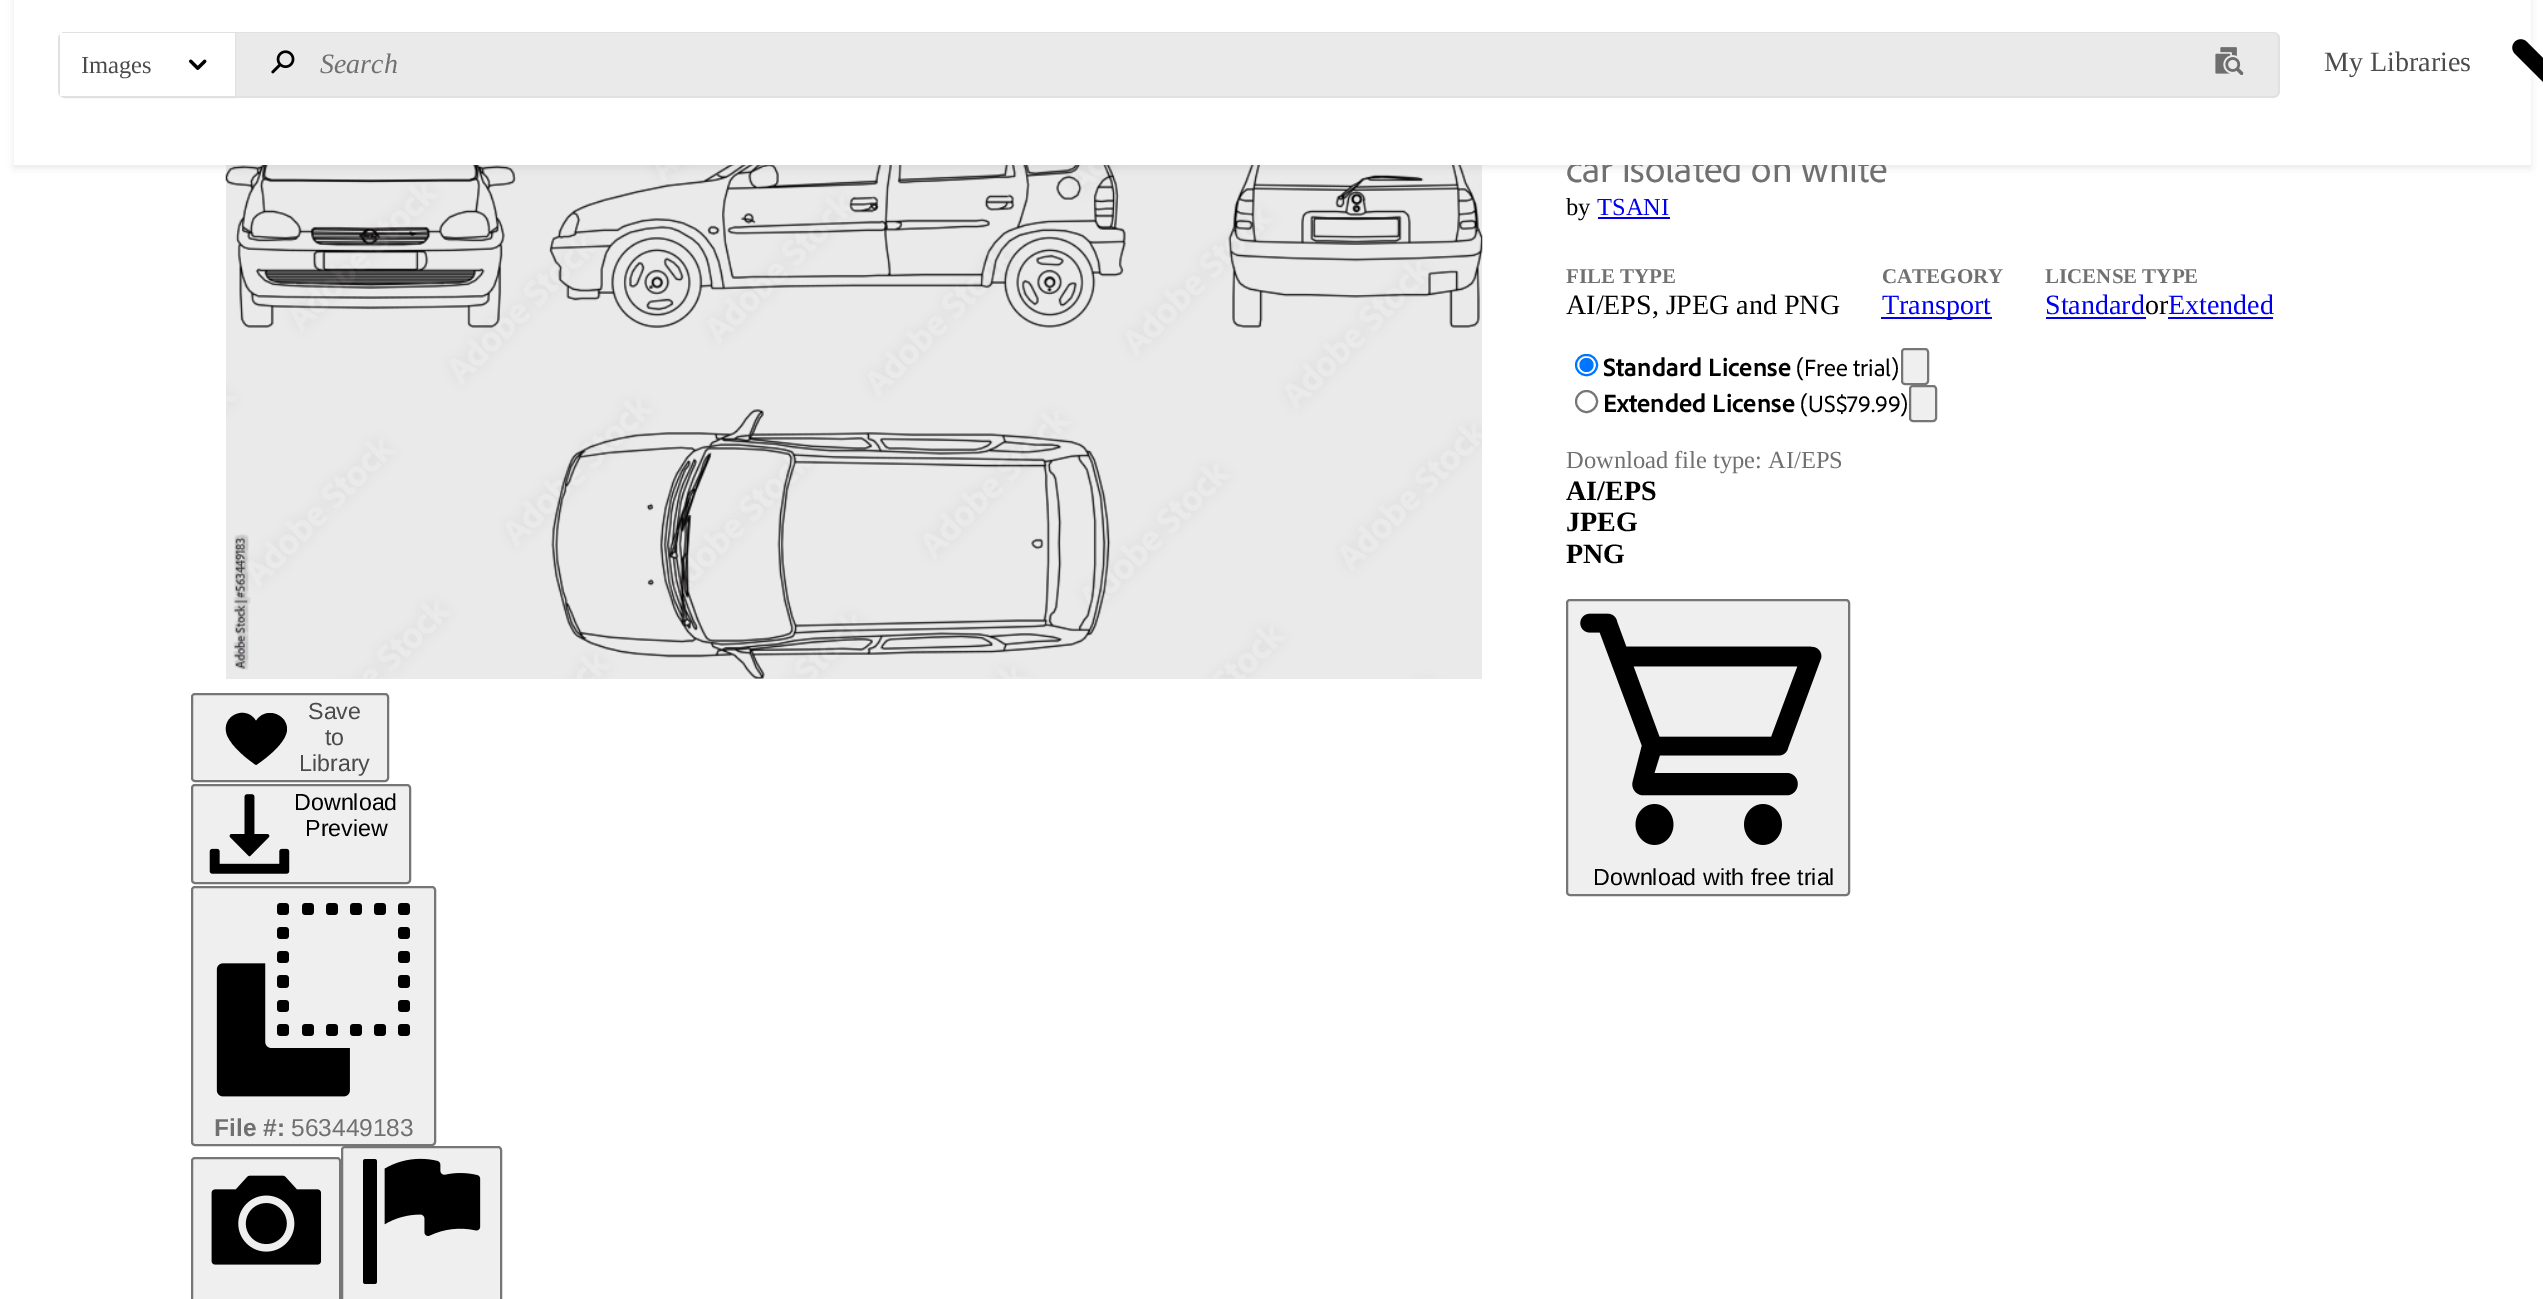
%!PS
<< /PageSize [2543 1299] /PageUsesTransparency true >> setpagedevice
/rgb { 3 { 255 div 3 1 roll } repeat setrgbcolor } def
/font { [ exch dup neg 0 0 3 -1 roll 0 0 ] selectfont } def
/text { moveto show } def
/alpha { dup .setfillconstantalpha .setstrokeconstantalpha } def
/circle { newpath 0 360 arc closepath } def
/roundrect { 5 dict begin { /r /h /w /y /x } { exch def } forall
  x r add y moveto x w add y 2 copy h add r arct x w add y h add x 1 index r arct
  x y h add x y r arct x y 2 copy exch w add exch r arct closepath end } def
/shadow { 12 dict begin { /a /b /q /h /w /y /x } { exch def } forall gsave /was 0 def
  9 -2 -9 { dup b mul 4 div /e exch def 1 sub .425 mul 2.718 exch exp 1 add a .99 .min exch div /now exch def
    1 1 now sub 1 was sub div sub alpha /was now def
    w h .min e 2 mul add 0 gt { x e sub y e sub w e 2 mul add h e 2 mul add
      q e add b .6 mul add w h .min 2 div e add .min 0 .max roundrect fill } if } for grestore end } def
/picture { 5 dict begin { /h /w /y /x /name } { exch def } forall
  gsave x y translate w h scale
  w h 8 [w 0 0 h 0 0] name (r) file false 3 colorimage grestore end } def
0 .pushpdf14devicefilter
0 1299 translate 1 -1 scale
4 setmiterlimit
255 255 255 rgb
0 0 2543 1299 rectfill
234 234 234 rgb
226 165 1256 514 rectfill
(img_05.rgb) 225 165 1258 514 picture
52 52 52 rgb
14 -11 2517 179 0 3.5 0.1 shadow
239 239 239 rgb
192 694 196 87 3 roundrect gsave fill grestore
118 118 118 rgb
2 setlinewidth
stroke
0 0 0 rgb
270 713 moveto -6 0 -11 3 -14 8 rcurveto -10 -17 -36 -5 -29 14 rcurveto 5 12 19 23 29 30 rcurveto 0 0 31 -20 31 -36 rcurveto 0 -9 -8 -16 -17 -16 rcurveto closepath eofill
239 239 239 rgb
192 785 218 98 3 roundrect gsave fill grestore
118 118 118 rgb
stroke
(img_06.rgb) 209 794 81 80 picture
239 239 239 rgb
192 887 243 258 3 roundrect gsave fill grestore
118 118 118 rgb
stroke
(img_07.rgb) 216 903 194 194 picture
239 239 239 rgb
192 1158 148 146 3 roundrect gsave fill grestore
118 118 118 rgb
stroke
(img_08.rgb) 211 1175 111 90 picture
239 239 239 rgb
342 1147 159 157 3 roundrect gsave fill grestore
118 118 118 rgb
stroke
(img_09.rgb) 363 1158 118 126 picture
0 0 238 rgb
1598 217 72 2 rectfill
1881 317 111 2 rectfill
2046 317 100 2 rectfill
2168 317 105 2 rectfill
0 117 255 rgb
1576 355 21 20 10 roundrect stroke
1586.5 365 7 circle fill
239 239 239 rgb
1902 349 26 35 3 roundrect gsave fill grestore
118 118 118 rgb
stroke
1586.5 401.5 10.5 circle stroke
239 239 239 rgb
1910 386 26 35 3 roundrect gsave fill grestore
118 118 118 rgb
stroke
239 239 239 rgb
1567 600 282 295 3 roundrect gsave fill grestore
118 118 118 rgb
stroke
(img_10.rgb) 1580 613 242 232 picture
/LiberationSans-Regular 23.25 font
75 75 75 rgb
(Save) 308 719 text
(to) 325 745 text
(Library) 299 771 text
0 0 0 rgb
(Download) 294 810 text
(Preview) 305 836 text
/LiberationSans-Bold 24.5 font
112 112 112 rgb
(File #:) 214 1136 text
/LiberationSans-Regular 24.5 font
(563449183) 291 1136 text
/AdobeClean-Regular 38.5 font
(car isolated on white) 1566 182 text
255 255 255 rgb
14 0 2517 165 rectfill
(img_04.rgb) 2512 39 31 43 picture
/LiberationSerif-Regular 28 font
75 75 75 rgb
(My Libraries) 2324 71 text
234 234 234 rgb
236 33 moveto 2038 0 rlineto 3 0 5 2 5 5 rcurveto 0 53 rlineto 0 3 -2 5 -5 5 rcurveto -2038 0 rlineto closepath fill
225 225 225 rgb
236 32 moveto 2037 0 rlineto 4 0 7 3 7 6 rcurveto 0 53 rlineto 0 4 -3 7 -7 7 rcurveto -2037 0 rlineto closepath 236 33 moveto 2037 0 rlineto 3 0 5 3 5 5 rcurveto 0 53 rlineto 0 3 -2 5 -5 5 rcurveto -2037 0 rlineto closepath eofill
(img_03.rgb) 2215 47 29 28 picture
(img_02.rgb) 271 50 24 24 picture
/LiberationSerif-Italic 28 font
112 112 112 rgb
(Search) 320 73 text
225 225 225 rgb
65 33 moveto 170 0 rlineto 0 64 rlineto -170 0 rlineto -3.5 0 -6 -2.5 -6 -6 rcurveto 0 -52 rlineto 0 -3.5 2.5 -6 6 -6 rcurveto closepath stroke
255 255 255 rgb
60 33 175 63 rectfill
(img_01.rgb) 189 59 18 11 picture
/LiberationSerif-Regular 24.5 font
75 75 75 rgb
(Images) 81 73 text
0 0 0 rgb
(by) 1566 215 text
0 0 238 rgb
(TSANI) 1597 215 text
/LiberationSerif-Bold 21 font
112 112 112 rgb
(FILE TYPE) 1566 283 text
/LiberationSerif-Regular 28 font
0 0 0 rgb
(AI/EPS, JPEG and PNG) 1566 314 text
/LiberationSerif-Bold 21 font
112 112 112 rgb
(CATEGORY) 1882 283 text
/LiberationSerif-Regular 28 font
0 0 238 rgb
(Transport) 1882 314 text
/LiberationSerif-Bold 21 font
112 112 112 rgb
(LICENSE TYPE) 2045 283 text
/LiberationSerif-Regular 28 font
0 0 238 rgb
(Standard) 2045 314 text
0 0 0 rgb
(or) 2145 314 text
0 0 238 rgb
(Extended) 2168 314 text
/AdobeClean-Bold 26.25 font
0 0 0 rgb
(Standard License) 1603 376 text
/AdobeClean-Regular 24.5 font
(\(Free trial\)) 1796 376 text
/AdobeClean-Bold 26.25 font
(Extended License) 1603 412 text
/AdobeClean-Regular 24.5 font
(\(US$79.99\)) 1800 412 text
/LiberationSerif-Regular 24.5 font
112 112 112 rgb
(Download file type: AI/EPS) 1566 468 text
/LiberationSerif-Bold 28 font
0 0 0 rgb
(AI/EPS) 1566 500 text
(JPEG) 1566 531 text
(PNG) 1566 563 text
/LiberationSans-Regular 23.25 font
(Download with free trial) 1593 885 text
.poppdf14devicefilter showpage
